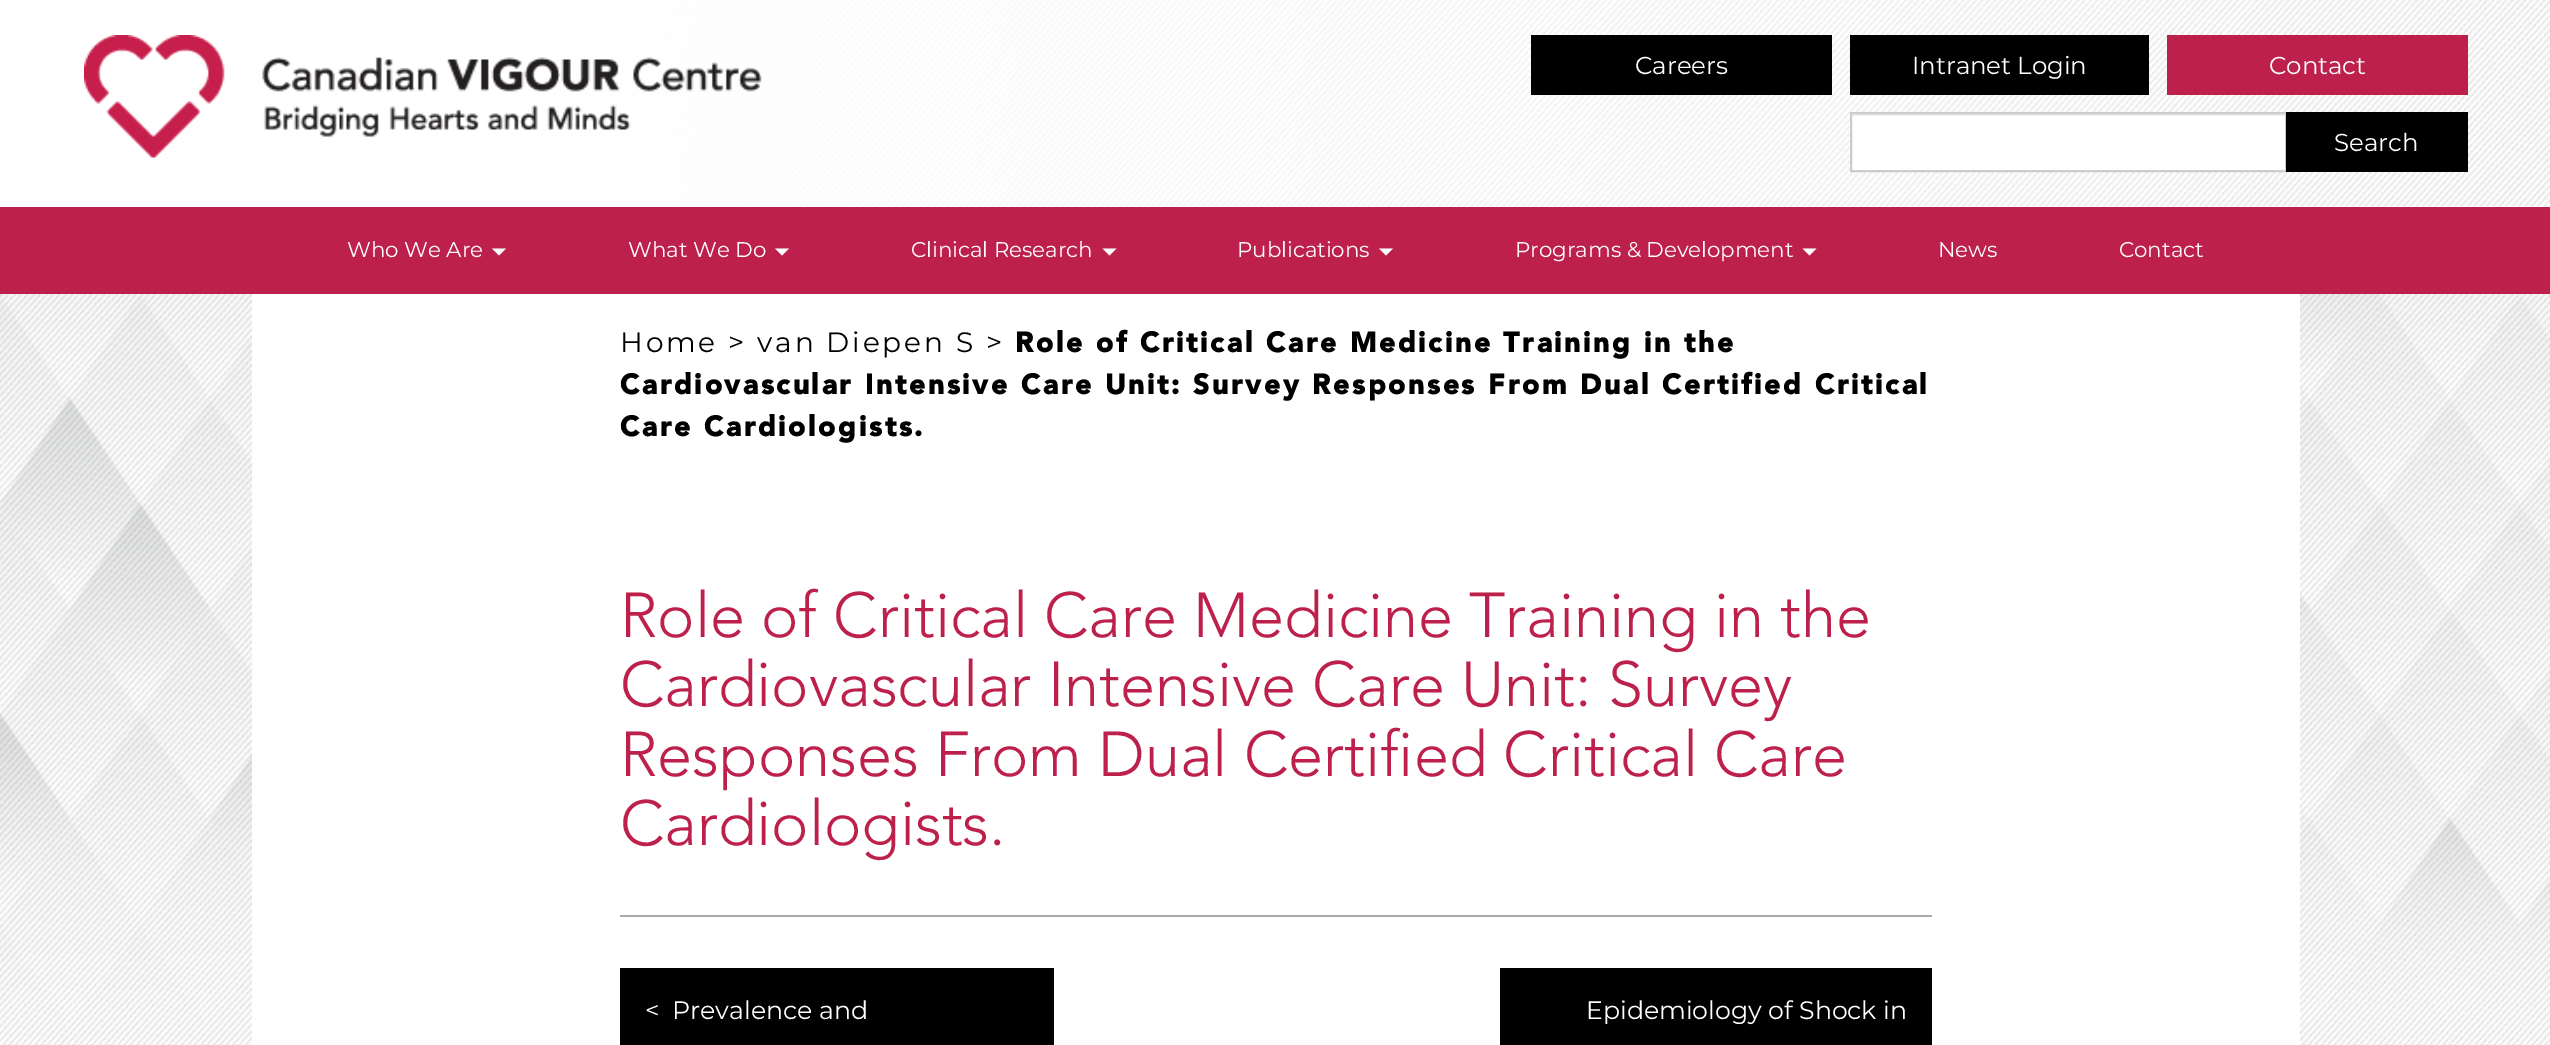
%!PS
<< /PageSize [2550 1045] >> setpagedevice
/rgb { 3 { 255 div 3 1 roll } repeat setrgbcolor } def
/font { [ exch dup neg 0 0 3 -1 roll 0 0 ] selectfont } def
/text { moveto show } def
/picture { 5 dict begin { /h /w /y /x /name } { exch def } forall
  gsave x y translate w h scale
  w h 8 [w 0 0 h 0 0] name (r) file false 3 colorimage grestore end } def
0 1045 translate 1 -1 scale
4 setmiterlimit
255 255 255 rgb
0 0 2550 1045 rectfill
(img_01.rgb) 0 0 2550 207 picture
(img_02.rgb) 84 35 678 123 picture
0 0 0 rgb
1531 35 301 60 rectfill
1850 35 299 60 rectfill
188 32 75 rgb
2167 35 301 60 rectfill
255 255 255 rgb
1852 116 433 54 rectfill
236 236 236 rgb
1852 114 434 2 rectfill
204 204 204 rgb
2 setlinewidth
1851 113 435 58 rectstroke
0 0 0 rgb
2286 112 182 60 rectfill
188 32 75 rgb
0 207 2550 87 rectfill
255 255 255 rgb
492 248.5 moveto 14 0 rlineto -7 7 rlineto closepath fill
775 248.5 moveto 14 0 rlineto -7 7 rlineto closepath fill
1102.5 248.5 moveto 14 0 rlineto -7 7 rlineto closepath fill
1379 248.5 moveto 14 0 rlineto -7 7 rlineto closepath fill
1802.5 248.5 moveto 14 0 rlineto -7 7 rlineto closepath fill
(img_03.rgb) 0 294 2550 751 picture
252 294 2048 751 rectfill
170 170 170 rgb
620 915 1312 2 rectfill
0 0 0 rgb
620 968 434 77 rectfill
1500 968 432 77 rectfill
/Montserrat-Regular 24.5 font
255 255 255 rgb
1635 74 moveto -0.05 0 (Careers) ashow
1912 74 moveto -0.05 0 (Intranet Login) ashow
2269 74 moveto -0.05 0 (Contact) ashow
(Search) 2334 151 text
/Montserrat-Regular 21.4 font
347 257 moveto -0.05 0 (Who We Are) ashow
628 257 moveto -0.05 0 (What We Do) ashow
911 257 moveto -0.05 0 (Clinical Research) ashow
1237 257 moveto -0.05 0 (Publications) ashow
1515 257 moveto -0.05 0 (Programs & Development) ashow
1938 257 moveto -0.05 0 (News) ashow
2119 257 moveto -0.05 0 (Contact) ashow
/Montserrat-Regular 28 font
0 0 0 rgb
620 352 moveto 2.8 0 (Home > van Diepen S >) ashow
/Avenir-Bold 28 font
1015 352 moveto 2.8 0 (Role of Critical Care Medicine Training in the) ashow
620 394 moveto 2.8 0 (Cardiovascular Intensive Care Unit: Survey Responses From Dual Certified Critical) ashow
620 436 moveto 2.8 0 (Care Cardiologists.) ashow
/Avenir-Regular 63 font
188 32 75 rgb
620 637 moveto -0.05 0 (Role of Critical Care Medicine Training in the) ashow
620 706 moveto -0.05 0 (Cardiovascular Intensive Care Unit: Survey) ashow
620 776 moveto -0.05 0 (Responses From Dual Certified Critical Care) ashow
620 845 moveto -0.05 0 (Cardiologists.) ashow
/Montserrat-Regular 25.25 font
255 255 255 rgb
645 1019 moveto -0.05 0 (<) ashow
672 1019 moveto -0.05 0 (Prevalence and) ashow
1586 1019 moveto -0.05 0 (Epidemiology of Shock in) ashow
showpage
